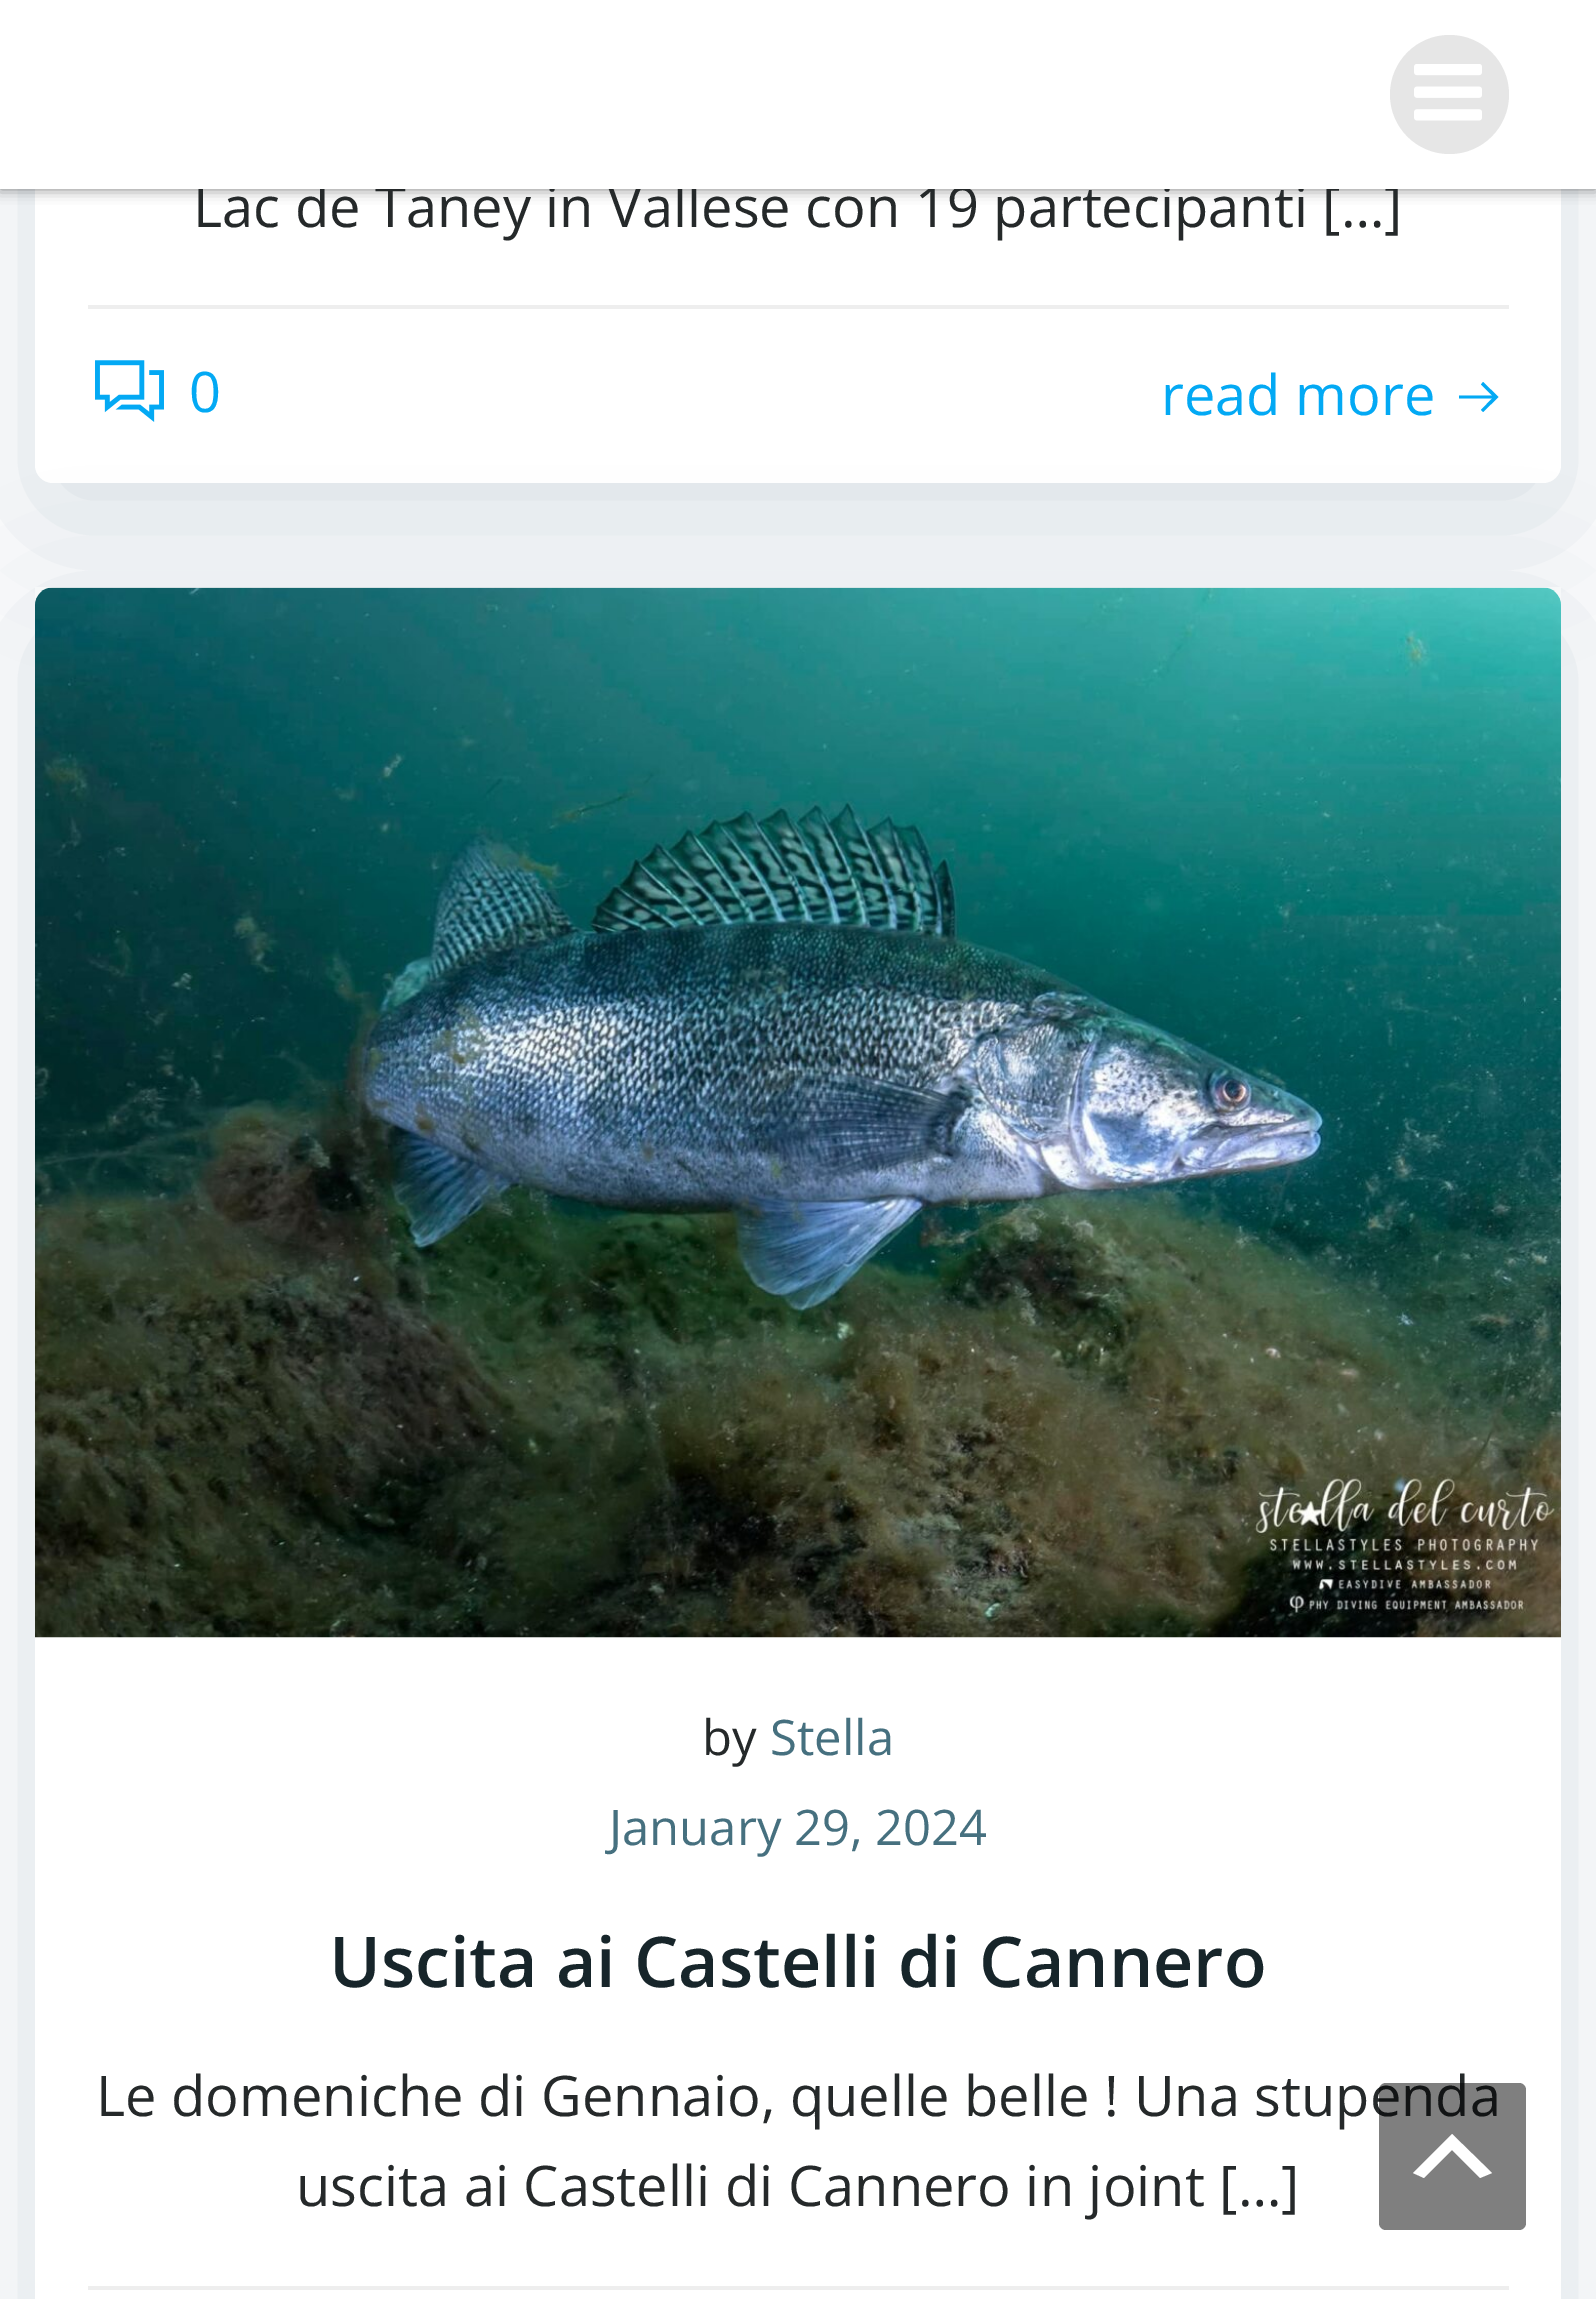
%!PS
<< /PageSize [1596 2299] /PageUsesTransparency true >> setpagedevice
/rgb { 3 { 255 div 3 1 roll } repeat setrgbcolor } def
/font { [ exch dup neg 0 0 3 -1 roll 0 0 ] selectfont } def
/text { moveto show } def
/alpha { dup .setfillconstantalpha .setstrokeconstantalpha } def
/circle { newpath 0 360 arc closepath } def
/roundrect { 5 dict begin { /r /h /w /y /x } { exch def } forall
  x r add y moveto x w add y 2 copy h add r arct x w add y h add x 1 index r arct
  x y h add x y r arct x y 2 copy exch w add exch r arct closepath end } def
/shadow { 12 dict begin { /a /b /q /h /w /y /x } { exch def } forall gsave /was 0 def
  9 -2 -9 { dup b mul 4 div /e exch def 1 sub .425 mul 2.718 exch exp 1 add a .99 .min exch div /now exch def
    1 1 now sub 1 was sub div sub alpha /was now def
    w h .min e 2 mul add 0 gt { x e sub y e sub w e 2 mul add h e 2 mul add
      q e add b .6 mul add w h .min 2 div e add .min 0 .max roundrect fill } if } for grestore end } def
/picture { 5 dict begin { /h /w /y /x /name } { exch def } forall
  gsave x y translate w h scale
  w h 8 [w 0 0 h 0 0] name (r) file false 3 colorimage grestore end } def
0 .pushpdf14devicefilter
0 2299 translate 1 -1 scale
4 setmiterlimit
255 255 255 rgb
0 0 1596 2299 rectfill
1 51 74 rgb
35 -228 1526 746 18 70 0.15 shadow
255 255 255 rgb
35 -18 1526 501 18 roundrect fill
0 0 0 rgb
0 0 1596 189 0 7 0.5 shadow
238 238 238 rgb
88 305 1421 4 rectfill
(img_02.rgb) 95 360 69 62 picture
3 169 244 rgb
1483 382 moveto 15.5 15 rlineto -15.5 15 rlineto -2 -2 rlineto 11 -11.5 rlineto -33 0 rlineto 0 -3 rlineto 33 0 rlineto -11 -11 rlineto closepath fill
1 51 74 rgb
35 623 1526 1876 18 70 0.15 shadow
255 255 255 rgb
35 588 1526 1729 18 roundrect fill
(img_03.rgb) 35 587 1526 1051 picture
238 238 238 rgb
88 2286 1421 4 rectfill
/OpenSans-Regular 56 font
37 41 42 rgb
(Lac de Taney in Vallese con 19 partecipanti […]) 193 227 text
255 255 255 rgb
0 0 1596 189 rectfill
230 230 230 rgb
1449.5 94.5 59.5 circle fill
(img_01.rgb) 1414 64 68 57 picture
3 169 244 rgb
(0) 189 412 text
(read more) 1161 415 text
/OpenSans-Regular 49 font
37 41 42 rgb
(by) 702 1755 text
70 112 127 rgb
(Stella) 770 1755 text
(January 29, 2024) 609 1845 text
/OpenSans-SemiBold 70 font
23 37 42 rgb
(Uscita ai Castelli di Cannero) 329 1987 text
/OpenSans-Regular 56 font
37 41 42 rgb
(Le domeniche di Gennaio, quelle belle ! Una stupenda) 96 2116 text
(uscita ai Castelli di Cannero in joint […]) 296 2206 text
0.5 alpha
0 0 0 rgb
1379 2083 147 147 7 roundrect fill
1 alpha
255 255 255 rgb
1480 2178 moveto -28 -28 rlineto -28 28 rlineto -11 -5 rlineto 39 -39 rlineto 40 39 rlineto closepath fill
.poppdf14devicefilter showpage
